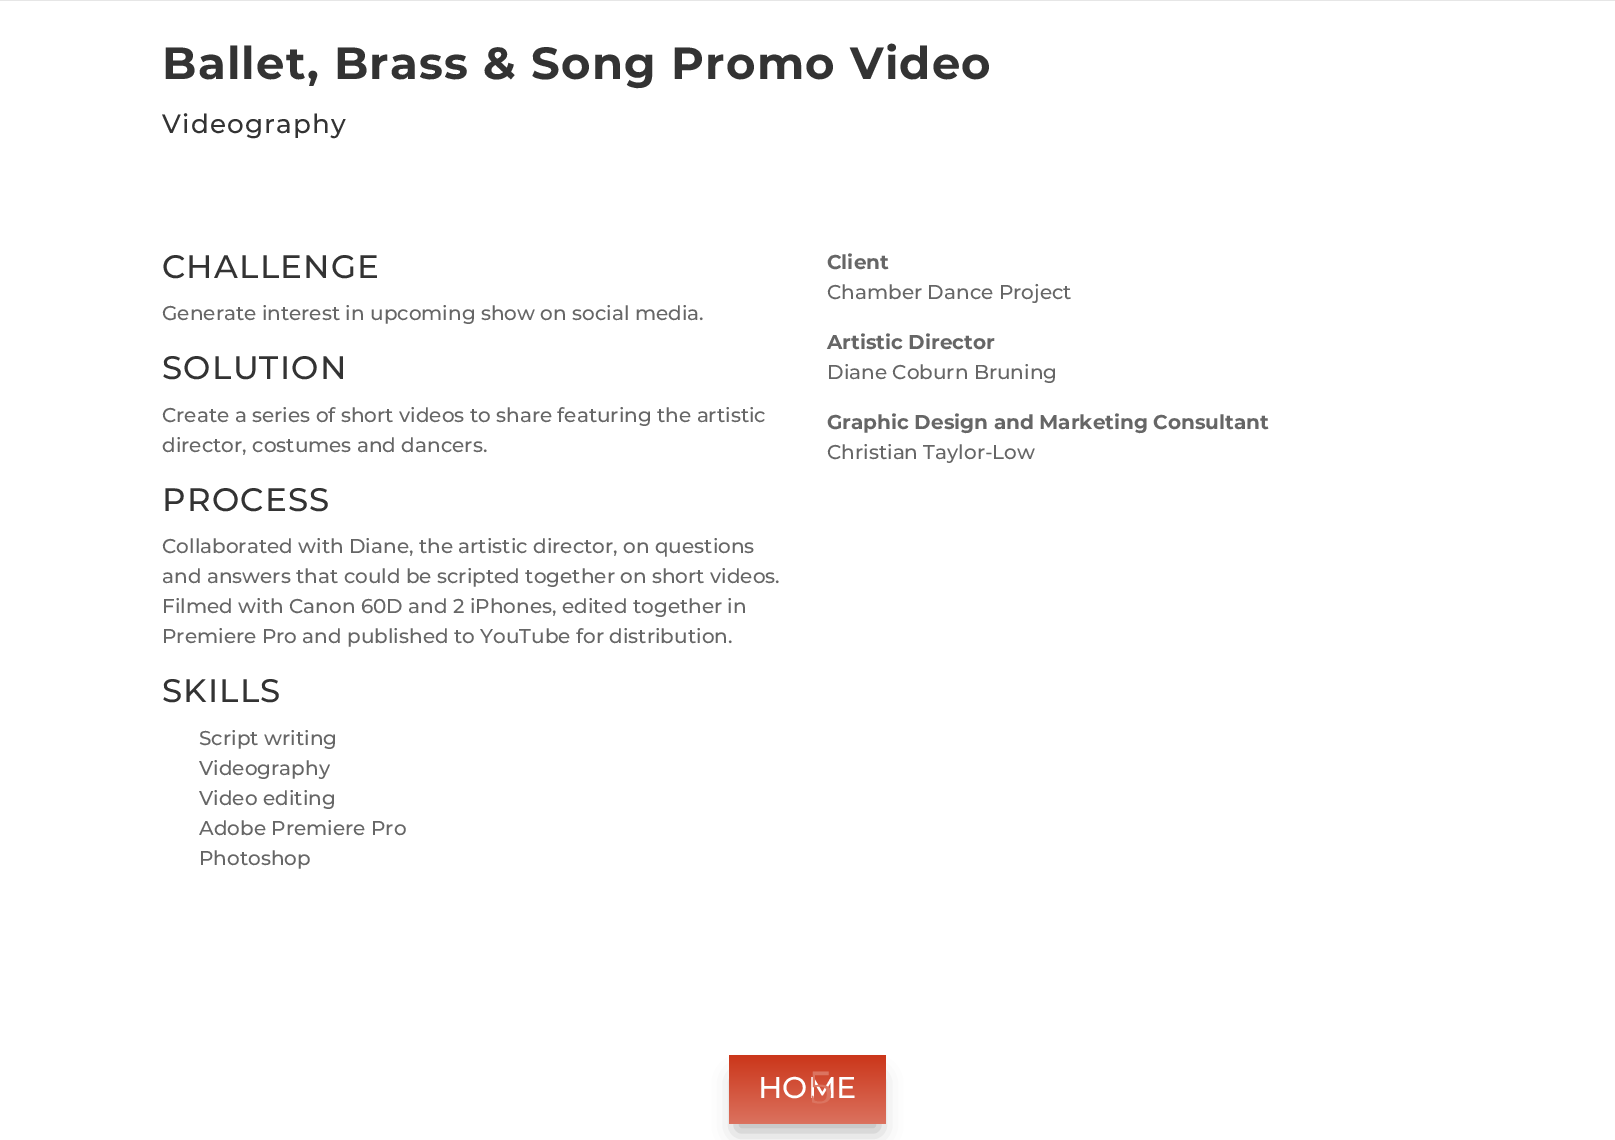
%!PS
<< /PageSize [1615 1140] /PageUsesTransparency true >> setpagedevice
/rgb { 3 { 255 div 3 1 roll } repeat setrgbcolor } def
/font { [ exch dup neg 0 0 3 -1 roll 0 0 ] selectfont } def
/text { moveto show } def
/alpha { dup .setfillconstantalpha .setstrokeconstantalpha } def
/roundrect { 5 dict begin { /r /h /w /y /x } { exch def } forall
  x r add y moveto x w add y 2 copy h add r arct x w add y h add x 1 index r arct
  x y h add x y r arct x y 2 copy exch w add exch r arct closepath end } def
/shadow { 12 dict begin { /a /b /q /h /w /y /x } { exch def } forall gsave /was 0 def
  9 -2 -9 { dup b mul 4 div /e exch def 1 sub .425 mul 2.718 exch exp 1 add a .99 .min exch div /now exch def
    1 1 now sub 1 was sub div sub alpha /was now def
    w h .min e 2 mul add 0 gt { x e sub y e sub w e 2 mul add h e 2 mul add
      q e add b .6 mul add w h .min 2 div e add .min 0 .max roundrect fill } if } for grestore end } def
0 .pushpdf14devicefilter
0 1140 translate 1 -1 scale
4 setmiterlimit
255 255 255 rgb
0 0 1615 1140 rectfill
230 230 230 rgb
0 0 1615 1 rectfill
0 0 0 rgb
736 1078 143 53 0 11 0.3 shadow
gsave 729 1055 moveto 157 0 rlineto 0 69 rlineto -157 0 rlineto closepath clip newpath
<< /ShadingType 2 /ColorSpace /DeviceRGB /Coords [808 1055 808 1124] /Extend [true true] /Function << /FunctionType 2 /Domain [0 1] /C0 [0.796 0.212 0.102] /C1 [0.859 0.447 0.373] /N 1 >> >> shfill grestore
/Montserrat-Thin 45 font
51 51 51 rgb
162 79 moveto 1.25 0 (Ballet, Brass & Song Promo Video) ashow
/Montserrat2-Thin 26.25 font
162 133 moveto 1.25 0 (Videography) ashow
/Montserrat2-Thin 32.5 font
162 278 moveto 1.25 0 (CHALLENGE) ashow
/Montserrat2-Thin 20 font
102 102 102 rgb
(Generate interest in upcoming show on social media.) 162 320 text
/Montserrat2-Thin 32.5 font
51 51 51 rgb
162 379 moveto 1.25 0 (SOLUTION) ashow
/Montserrat2-Thin 20 font
102 102 102 rgb
(Create a series of short videos to share featuring the artistic) 162 422 text
(director, costumes and dancers.) 162 452 text
/Montserrat2-Thin 32.5 font
51 51 51 rgb
162 511 moveto 1.25 0 (PROCESS) ashow
/Montserrat2-Thin 20 font
102 102 102 rgb
(Collaborated with Diane, the artistic director, on questions) 162 553 text
(and answers that could be scripted together on short videos.) 162 583 text
(Filmed with Canon 60D and 2 iPhones, edited together in) 162 613 text
(Premiere Pro and published to YouTube for distribution.) 162 643 text
/Montserrat2-Thin 32.5 font
51 51 51 rgb
162 702 moveto 1.25 0 (SKILLS) ashow
/Montserrat2-Thin 20 font
102 102 102 rgb
(Script writing) 199 745 text
(Videography) 199 775 text
(Video editing) 199 805 text
(Adobe Premiere Pro) 199 835 text
(Photoshop) 199 865 text
/Montserrat-Thin 20 font
(Client) 827 269 text
/Montserrat2-Thin 20 font
(Chamber Dance Project) 827 299 text
/Montserrat-Thin 20 font
(Artistic Director) 827 349 text
/Montserrat2-Thin 20 font
(Diane Coburn Bruning) 827 379 text
/Montserrat-Thin 20 font
(Graphic Design and Marketing Consultant) 827 429 text
/Montserrat2-Thin 20 font
(Christian Taylor-Low) 827 459 text
/Montserrat2-Thin 30 font
255 255 255 rgb
(HOME) 758 1098 text
/LiberationSerif-Regular 48 font
219 116 96 rgb
(5) 809 1103 text
.poppdf14devicefilter showpage
